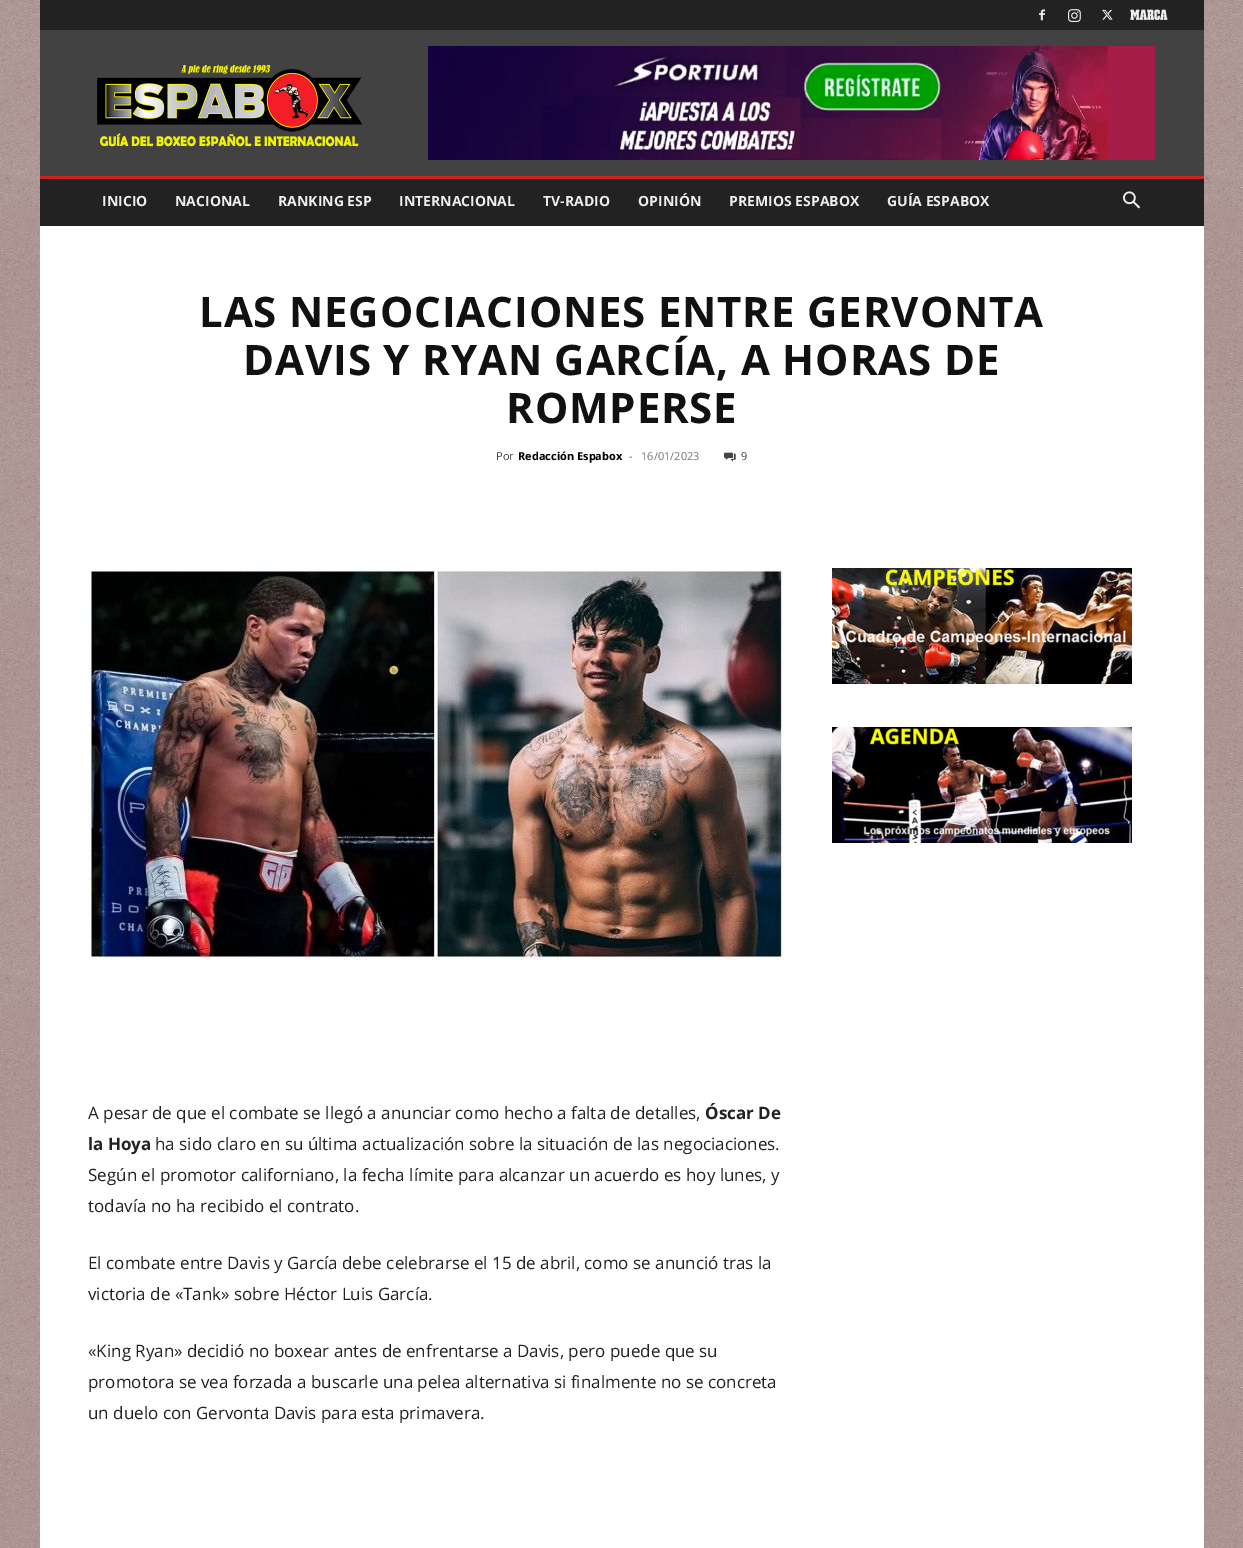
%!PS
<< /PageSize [1243 1548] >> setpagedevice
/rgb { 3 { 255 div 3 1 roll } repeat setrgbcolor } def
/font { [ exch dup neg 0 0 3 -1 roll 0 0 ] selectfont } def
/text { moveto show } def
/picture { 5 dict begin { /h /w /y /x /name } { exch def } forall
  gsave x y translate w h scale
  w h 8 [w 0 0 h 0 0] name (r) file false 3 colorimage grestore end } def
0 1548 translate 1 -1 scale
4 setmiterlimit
255 255 255 rgb
0 0 1243 1548 rectfill
(img_01.rgb) 0 0 1243 1548 picture
34 34 34 rgb
40 0 1164 30 rectfill
(img_02.rgb) 1039 9 6 12 picture
(img_03.rgb) 1068 9 13 13 picture
(img_04.rgb) 1102 9 11 11 picture
(img_05.rgb) 1130 9 38 11 picture
66 66 66 rgb
40 30 1164 146 rectfill
(img_06.rgb) 97 64 266 83 picture
(img_07.rgb) 428 46 727 114 picture
34 34 34 rgb
40 179 1164 47 rectfill
204 36 36 rgb
40 176 1164 3 rectfill
(img_08.rgb) 1123 191 17 18 picture
255 255 255 rgb
40 226 1164 1322 rectfill
(img_09.rgb) 724 452 12 10 picture
(img_10.rgb) 832 568 300 116 picture
(img_11.rgb) 832 727 300 116 picture
(img_12.rgb) 88 568 696 392 picture
/OpenSans-Bold 14 font
237 237 237 rgb
(INICIO) 102 206 text
(NACIONAL) 175 206 text
(RANKING ESP) 278 206 text
(INTERNACIONAL) 399 206 text
(TV-RADIO) 543 206 text
(OPINIÓN) 638 206 text
(PREMIOS ESPABOX) 729 206 text
(GUÍA ESPABOX) 887 206 text
/OpenSans-Bold 42 font
17 17 17 rgb
199 327 moveto 0.85 0 (LAS NEGOCIACIONES ENTRE GERVONTA) ashow
243 375 moveto 0.85 0 (DAVIS Y RYAN GARCÍA, A HORAS DE) ashow
506 423 moveto 0.85 0 (ROMPERSE) ashow
/OpenSans-Regular 11 font
68 68 68 rgb
(Por) 496 460 text
/OpenSans-Bold 11 font
0 0 0 rgb
(Redacción Espabox) 518 460 text
/OpenSans-Regular 11 font
68 68 68 rgb
(-) 629 460 text
118 118 118 rgb
(16/01/2023) 641 460 text
68 68 68 rgb
(9) 741 460 text
/OpenSans-Regular 17 font
34 34 34 rgb
(A pesar de que el combate se llegó a anunciar como hecho a falta de detalles,) 88 1119 text
/OpenSans-Bold 17 font
(Óscar De) 705 1119 text
(la Hoya) 88 1150 text
/OpenSans-Regular 17 font
(ha sido claro en su última actualización sobre la situación de las negociaciones.) 155 1150 text
(Según el promotor californiano, la fecha límite para alcanzar un acuerdo es hoy lunes, y) 88 1181 text
(todavía no ha recibido el contrato.) 88 1212 text
(El combate entre Davis y García debe celebrarse el 15 de abril, como se anunció tras la) 88 1269 text
(victoria de «Tank» sobre Héctor Luis García.) 88 1300 text
(«King Ryan» decidió no boxear antes de enfrentarse a Davis, pero puede que su) 88 1357 text
(promotora se vea forzada a buscarle una pelea alternativa si finalmente no se concreta) 88 1388 text
(un duelo con Gervonta Davis para esta primavera.) 88 1419 text
showpage
